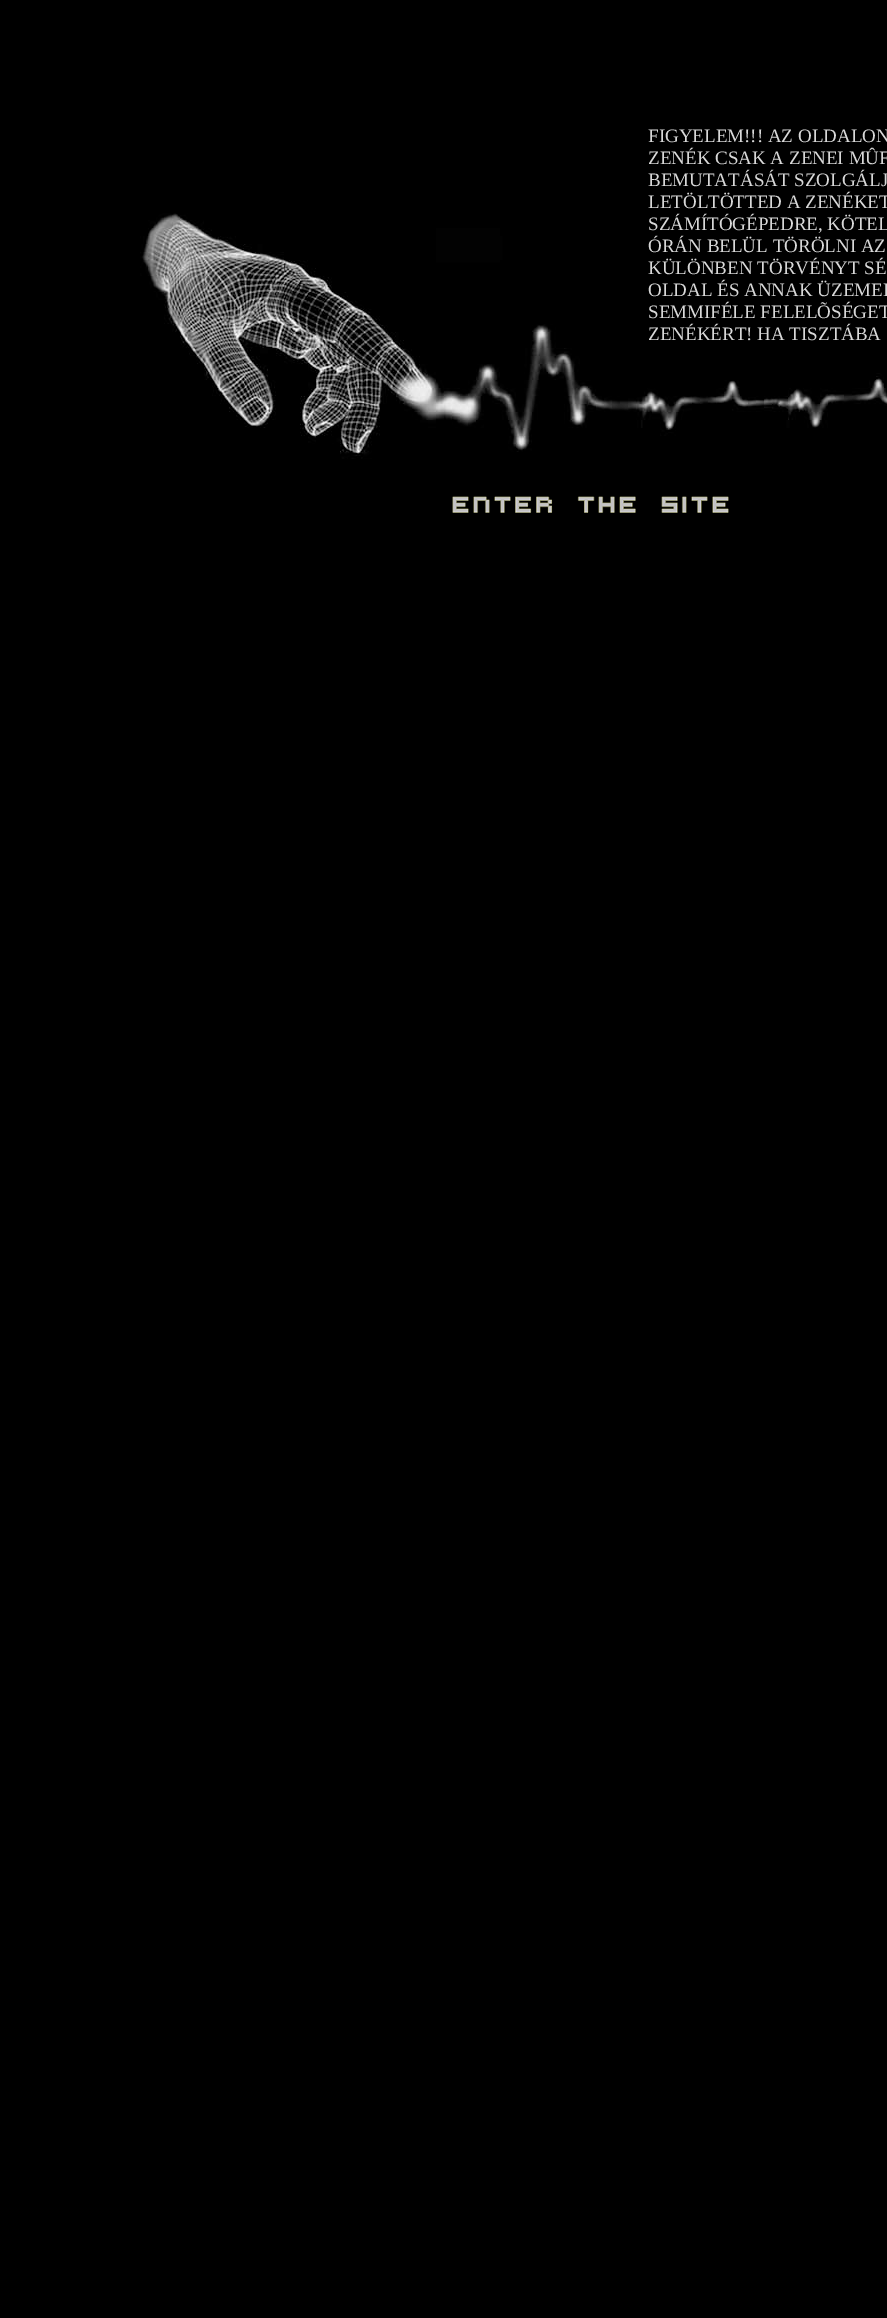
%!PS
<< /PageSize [887 2318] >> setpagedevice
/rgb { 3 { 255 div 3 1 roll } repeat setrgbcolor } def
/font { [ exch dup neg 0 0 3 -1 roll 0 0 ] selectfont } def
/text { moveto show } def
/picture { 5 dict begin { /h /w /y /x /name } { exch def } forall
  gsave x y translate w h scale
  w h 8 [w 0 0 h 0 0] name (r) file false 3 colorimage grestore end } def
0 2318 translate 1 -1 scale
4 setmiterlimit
0 0 0 rgb
0 0 887 2318 rectfill
(img_01.rgb) 140 213 747 246 picture
(img_02.rgb) 452 496 277 17 picture
/LiberationSerif-Regular 19 font
216 216 216 rgb
(FIGYELEM!!! AZ OLDALON) 648 142 text
(ZENÉK CSAK A ZENEI MÛF) 648 164 text
(BEMUTATÁSÁT SZOLGÁLJ) 648 186 text
(LETÖLTÖTTED A ZENÉKET) 648 208 text
(SZÁMÍTÓGÉPEDRE, KÖTEL) 648 230 text
(ÓRÁN BELÜL TÖRÖLNI AZ) 648 252 text
(KÜLÖNBEN TÖRVÉNYT SÉ) 648 274 text
(OLDAL ÉS ANNAK ÜZEMEL) 648 296 text
(SEMMIFÉLE FELELÕSÉGET) 648 318 text
(ZENÉKÉRT! HA TISZTÁBA) 648 340 text
showpage
